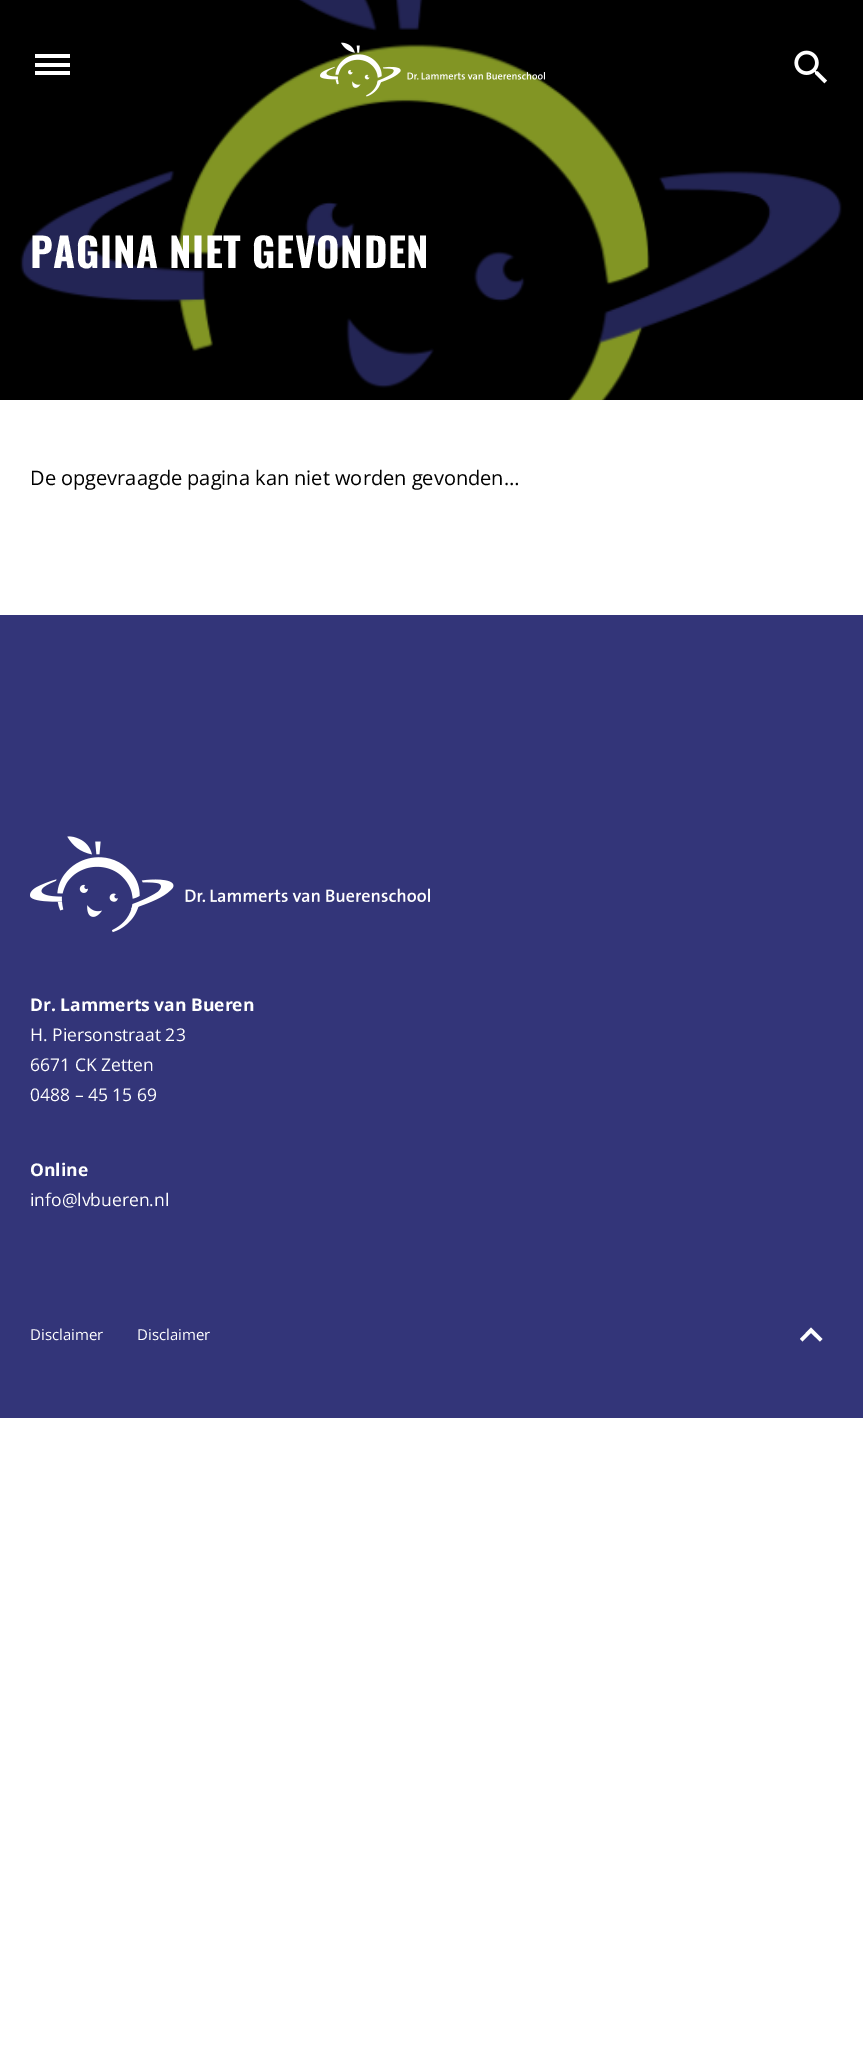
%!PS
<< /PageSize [863 2055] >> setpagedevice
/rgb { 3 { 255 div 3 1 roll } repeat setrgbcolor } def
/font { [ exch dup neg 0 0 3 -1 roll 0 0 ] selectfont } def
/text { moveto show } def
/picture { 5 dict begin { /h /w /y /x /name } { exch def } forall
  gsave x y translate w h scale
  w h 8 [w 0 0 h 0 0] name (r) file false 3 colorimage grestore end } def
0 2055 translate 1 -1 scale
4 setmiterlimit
255 255 255 rgb
0 0 863 2055 rectfill
0 0 0 rgb
0 0 863 400 rectfill
(img_03.rgb) 20 0 822 400 picture
255 255 255 rgb
35 54 35 4 rectfill
35 63 35 4 rectfill
35 71 35 4 rectfill
(img_01.rgb) 320 42 225 55 picture
(img_02.rgb) 794 50 34 34 picture
51 53 121 rgb
0 615 863 803 rectfill
(img_04.rgb) 30 836 400 97 picture
255 255 255 rgb
811 1327.5 moveto -11 11.5 rlineto 2.5 2.5 rlineto 8.5 -8.5 rlineto 9 8.5 rlineto 2.5 -2.5 rlineto closepath fill
/Oswald-Bold 40 font
30 268 moveto 0.6 0 (PAGINA NIET GEVONDEN) ashow
/OpenSans-Regular 20 font
0 0 0 rgb
(De opgevraagde pagina kan niet worden gevonden…) 30 485 text
/OpenSans-Bold 17.5 font
255 255 255 rgb
(Dr. Lammerts van Bueren) 30 1011 text
/OpenSans-Regular 17.5 font
(H. Piersonstraat 23) 30 1041 text
(6671 CK Zetten) 30 1071 text
(0488 – 45 15 69) 30 1101 text
/OpenSans-Bold 17.5 font
(Online) 30 1176 text
/OpenSans-Regular 17.5 font
(info@lvbueren.nl) 30 1206 text
/OpenSans-Regular 15 font
(Disclaimer) 30 1340 text
(Disclaimer) 137 1340 text
showpage
